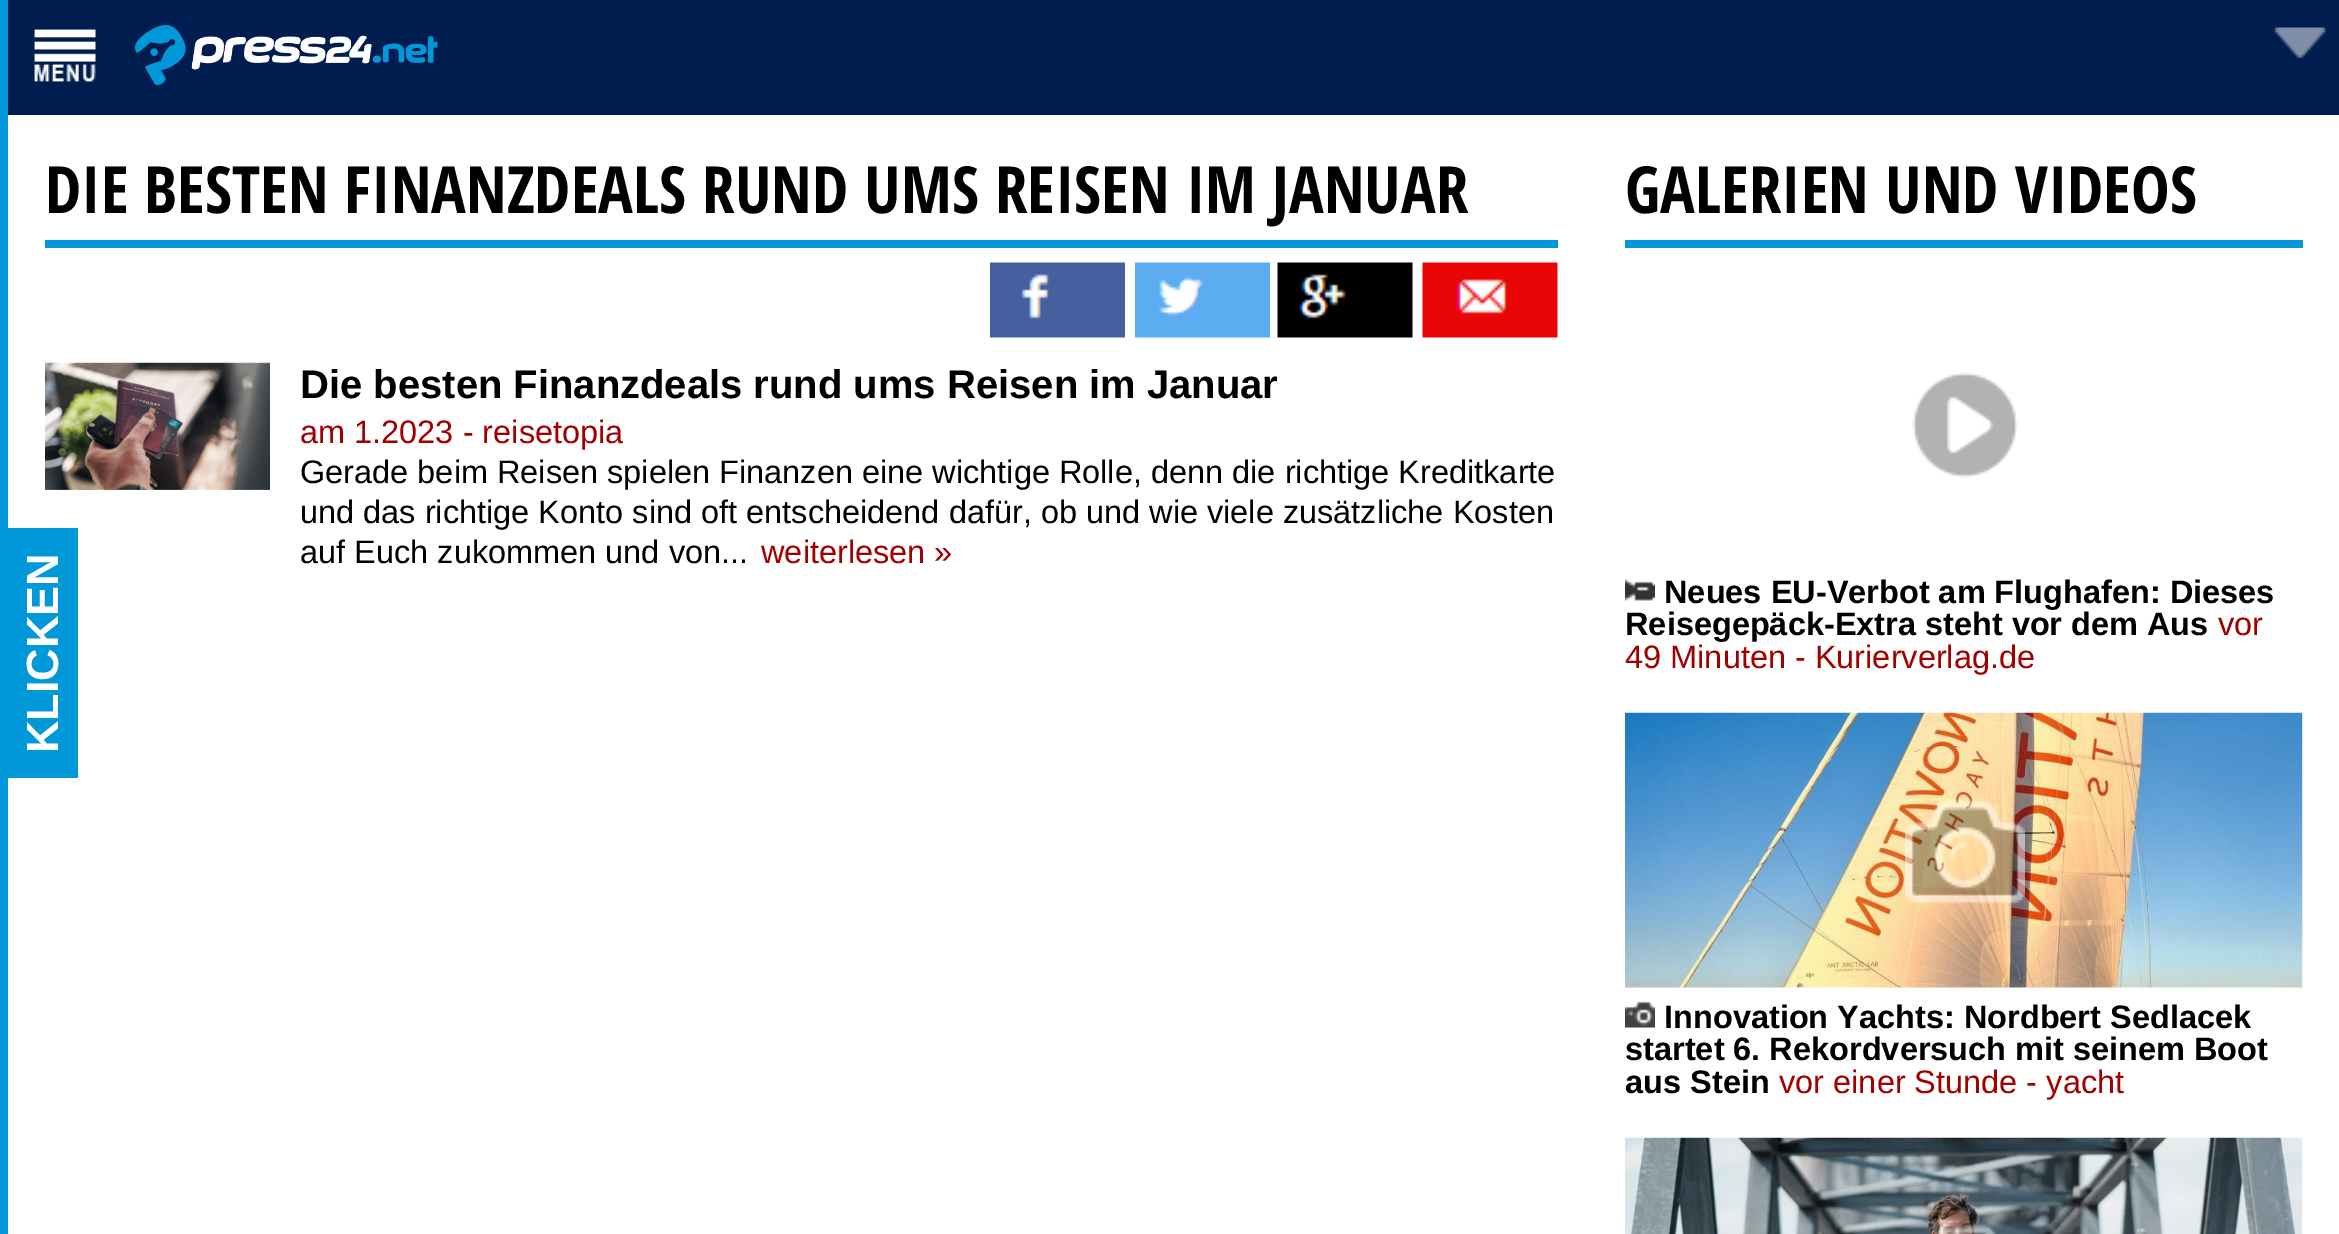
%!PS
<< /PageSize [2339 1234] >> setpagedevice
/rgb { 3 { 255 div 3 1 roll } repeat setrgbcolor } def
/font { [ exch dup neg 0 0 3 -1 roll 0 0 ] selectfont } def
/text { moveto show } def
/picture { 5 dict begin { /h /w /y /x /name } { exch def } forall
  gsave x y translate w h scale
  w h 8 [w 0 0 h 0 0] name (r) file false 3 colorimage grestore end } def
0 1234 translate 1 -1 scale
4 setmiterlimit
255 255 255 rgb
0 0 2339 1234 rectfill
0 152 216 rgb
0 0 8 1234 rectfill
0 29 79 rgb
8 0 2331 115 rectfill
(img_01.rgb) 34 29 62 53 picture
(img_02.rgb) 135 25 303 60 picture
(img_03.rgb) 2274 27 52 32 picture
0 152 216 rgb
8 528 70 250 rectfill
45 240 1513 8 rectfill
(img_04.rgb) 990 262 135 76 picture
(img_05.rgb) 1135 262 135 76 picture
(img_06.rgb) 1277 262 136 76 picture
(img_07.rgb) 1422 262 136 76 picture
(img_08.rgb) 45 362 225 128 picture
1625 240 678 8 rectfill
(img_09.rgb) 1912 372 106 106 picture
(img_10.rgb) 1625 579 30 22 picture
(img_11.rgb) 1625 712 678 276 picture
(img_12.rgb) 1905 799 120 105 picture
(img_13.rgb) 1625 1001 30 27 picture
(img_14.rgb) 1625 1137 678 97 picture
(img_15.rgb) 1934 1224 62 10 picture
/LiberationSans-Bold 45 font
255 255 255 rgb
gsave 58 753 translate -90 rotate 0 0 moveto (KLICKEN) show grestore
/OpenSansCondensed-Bold 65 font
0 0 0 rgb
(DIE BESTEN FINANZDEALS RUND UMS REISEN IM JANUAR) 45 213 text
/LiberationSans-Bold 40 font
(Die besten Finanzdeals rund ums Reisen im Januar) 300 398 text
/LiberationSans-Regular 32.5 font
162 0 0 rgb
(am 1.2023 - reisetopia) 300 443 text
0 0 0 rgb
(Gerade beim Reisen spielen Finanzen eine wichtige Rolle, denn die richtige Kreditkarte) 300 483 text
(und das richtige Konto sind oft entscheidend dafür, ob und wie viele zusätzliche Kosten) 300 523 text
(auf Euch zukommen und von...) 300 563 text
162 0 0 rgb
(weiterlesen ») 761 563 text
/OpenSansCondensed-Bold 65 font
0 0 0 rgb
(GALERIEN UND VIDEOS) 1625 213 text
/LiberationSans-Bold 32.5 font
(Neues EU-Verbot am Flughafen: Dieses) 1664 603 text
(Reisegepäck-Extra steht vor dem Aus) 1625 635 text
/LiberationSans-Regular 32.5 font
162 0 0 rgb
(vor) 2218 635 text
(49 Minuten - Kurierverlag.de) 1625 668 text
/LiberationSans-Bold 32.5 font
0 0 0 rgb
(Innovation Yachts: Nordbert Sedlacek) 1664 1028 text
(startet 6. Rekordversuch mit seinem Boot) 1625 1060 text
(aus Stein) 1625 1093 text
/LiberationSans-Regular 32.5 font
162 0 0 rgb
(vor einer Stunde - yacht) 1779 1093 text
showpage
